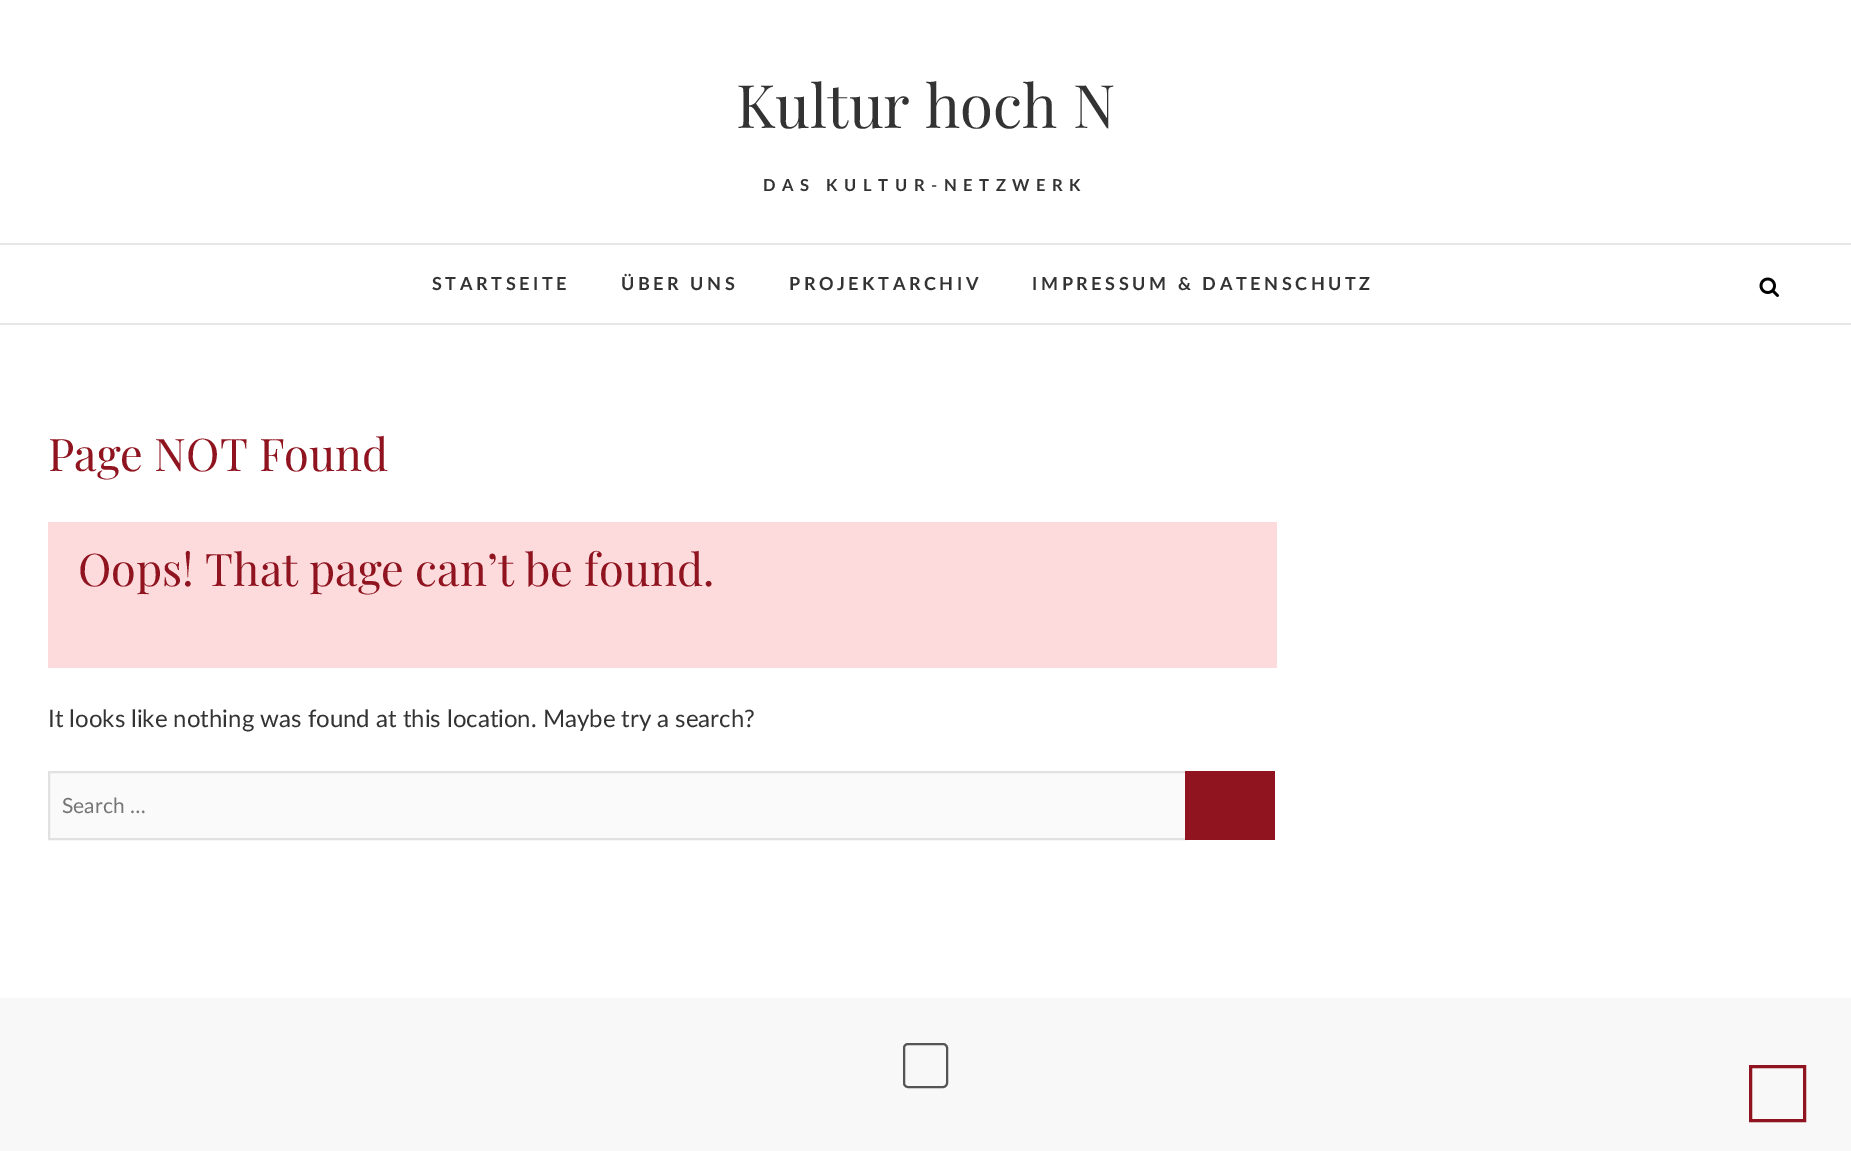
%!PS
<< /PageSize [1851 1151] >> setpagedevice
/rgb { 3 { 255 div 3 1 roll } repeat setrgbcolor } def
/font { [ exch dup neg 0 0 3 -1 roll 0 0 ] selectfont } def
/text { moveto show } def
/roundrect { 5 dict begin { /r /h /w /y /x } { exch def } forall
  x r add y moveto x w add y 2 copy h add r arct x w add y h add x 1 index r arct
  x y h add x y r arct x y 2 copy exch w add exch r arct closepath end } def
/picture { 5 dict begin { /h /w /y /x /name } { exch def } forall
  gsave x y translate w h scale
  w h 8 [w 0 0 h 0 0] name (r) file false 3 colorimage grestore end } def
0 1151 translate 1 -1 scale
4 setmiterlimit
255 255 255 rgb
0 0 1851 1151 rectfill
230 230 230 rgb
0 243 1851 2 rectfill
0 323 1851 2 rectfill
(img_01.rgb) 1759 277 20 20 picture
253 219 221 rgb
48 522 1229 146 rectfill
250 250 250 rgb
49 772 moveto 1137 0 rlineto 0 67 rlineto -1137 0 rlineto closepath gsave fill grestore
225 225 225 rgb
2 setlinewidth
stroke
144 20 31 rgb
1185 771 90 69 rectfill
248 248 248 rgb
0 998 1851 153 rectfill
84 84 84 rgb
904 1044 43 43 4 roundrect stroke
144 20 31 rgb
3 setlinewidth
1750.5 1066.5 54 54 rectstroke
/PlayfairDisplay-Regular 60 font
51 51 51 rgb
(Kultur hoch N) 736 128 text
/Lato-Bold 16.5 font
763 191 moveto 6.6 0 (DAS KULTUR-NETZWERK) ashow
/Lato-Bold 18 font
432 290 moveto 3.6 0 (STARTSEITE) ashow
621 290 moveto 3.6 0 (ÜBER UNS) ashow
789 290 moveto 3.6 0 (PROJEKTARCHIV) ashow
1032 290 moveto 3.6 0 (IMPRESSUM & DATENSCHUTZ) ashow
/PlayfairDisplay-Regular 45 font
144 20 31 rgb
(Page NOT Found) 48 471 text
(Oops! That page can’t be found.) 78 586 text
/Lato-Regular 24 font
51 51 51 rgb
(It looks like nothing was found at this location. Maybe try a search?) 48 727 text
/Lato-Regular 21 font
117 117 117 rgb
(Search …) 62 813 text
showpage
